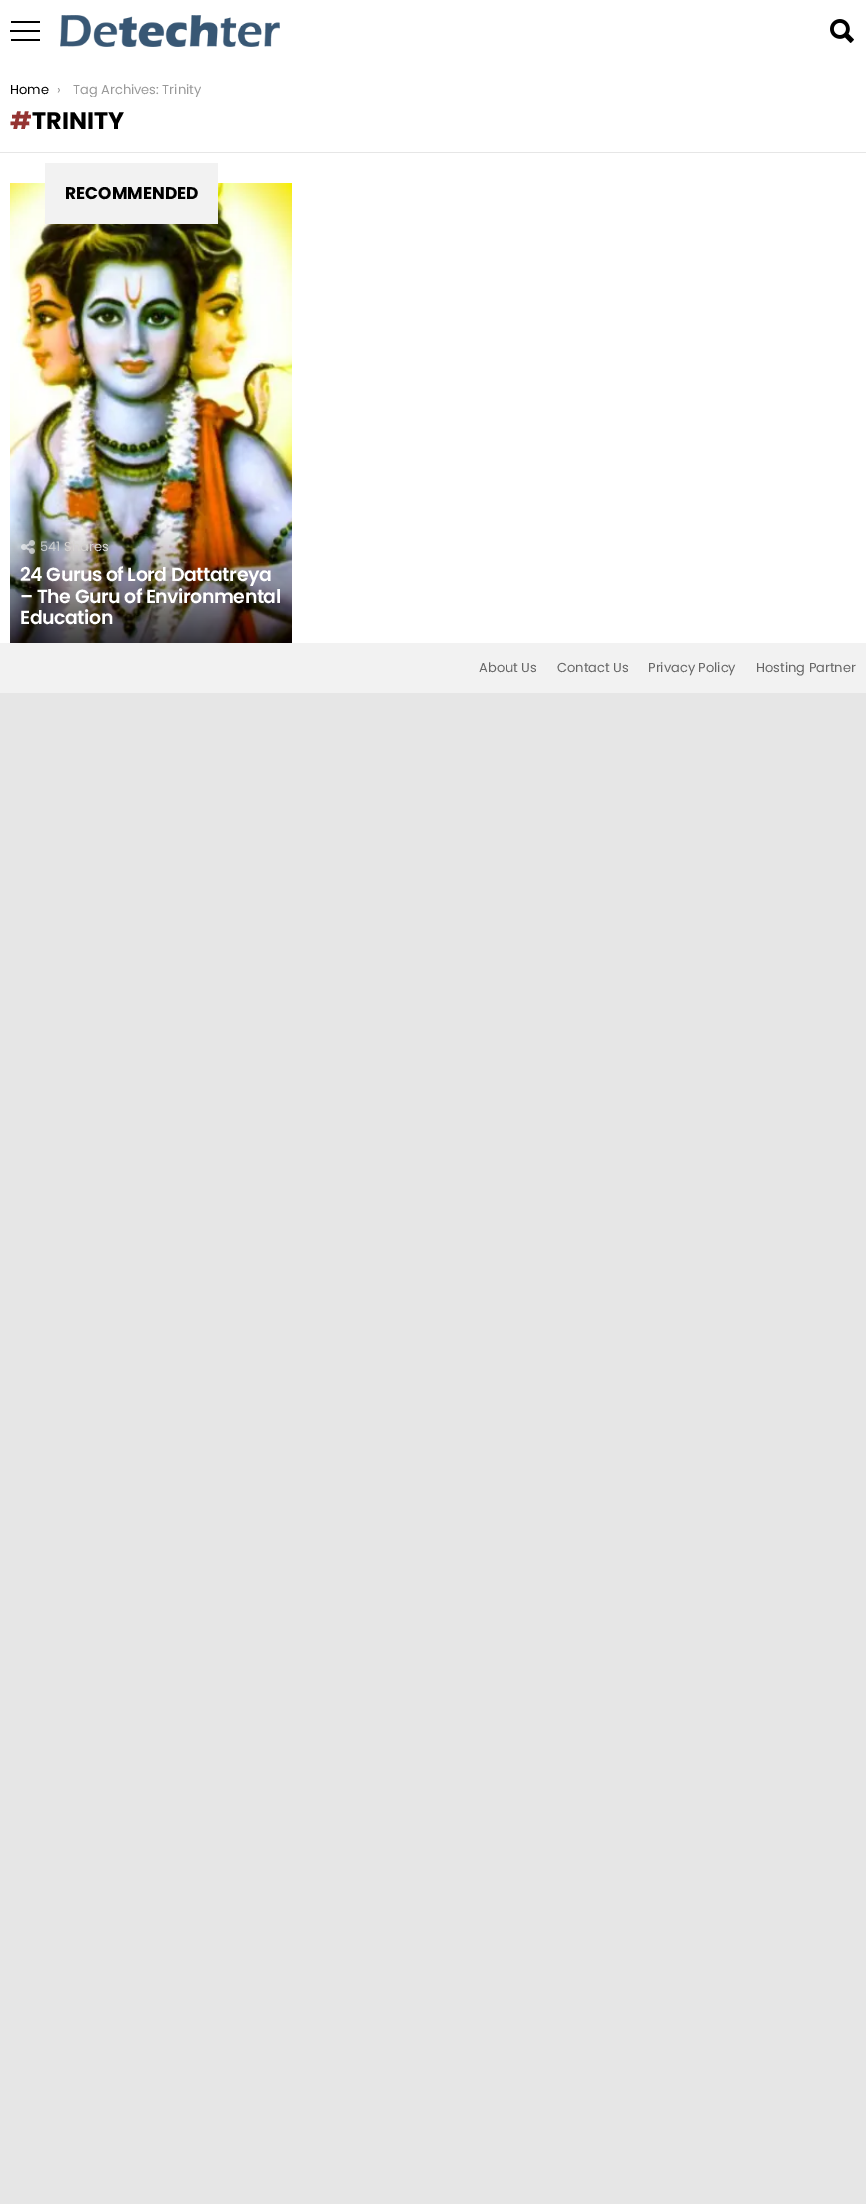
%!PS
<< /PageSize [866 2204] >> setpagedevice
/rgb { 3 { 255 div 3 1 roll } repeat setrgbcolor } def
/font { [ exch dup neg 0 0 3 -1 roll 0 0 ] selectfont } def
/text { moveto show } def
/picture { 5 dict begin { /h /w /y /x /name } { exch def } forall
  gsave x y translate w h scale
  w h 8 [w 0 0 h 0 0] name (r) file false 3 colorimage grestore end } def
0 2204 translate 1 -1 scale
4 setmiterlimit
230 230 230 rgb
0 0 866 2204 rectfill
255 255 255 rgb
0 0 866 152 rectfill
0 0 0 rgb
11 21 29 2 rectfill
11 39 29 2 rectfill
10 30 30 2 rectfill
(img_01.rgb) 60 15 220 32 picture
(img_02.rgb) 830 19 24 24 picture
255 255 255 rgb
0 153 866 490 rectfill
(img_03.rgb) 10 183 282 460 picture
242 242 242 rgb
45 163 173 61 rectfill
(img_04.rgb) 21 540 14 14 picture
0 643 866 50 rectfill
/Poppins-Regular 13 font
0 0 0 rgb
(Home) 10 94 text
153 153 153 rgb
(›) 57 94 text
gsave
57 82 144 15 rectclip
(Tag Archives: Trinity) 73 94 text
grestore
/Poppins-Bold 24 font
149 52 50 rgb
(#) 10 129 text
0 0 0 rgb
(TRINITY) 32 129 text
/Poppins-Bold 17 font
(RECOMMENDED) 65 199 text
/Poppins-Regular 13 font
201 205 207 rgb
(541) 40 551 text
214 212 209 rgb
(Shares) 64 551 text
/Poppins-SemiBold 19 font
255 255 255 rgb
20 581 moveto -0.5 0 (24 Gurus of Lord Dattatreya) ashow
20 603 moveto -0.5 0 (– The Guru of Environmental) ashow
20 624 moveto -0.5 0 (Education) ashow
/Poppins-Regular 13 font
102 102 102 rgb
(About Us) 479 672 text
(Contact Us) 557 672 text
(Privacy Policy) 648 672 text
(Hosting Partner) 756 672 text
showpage
